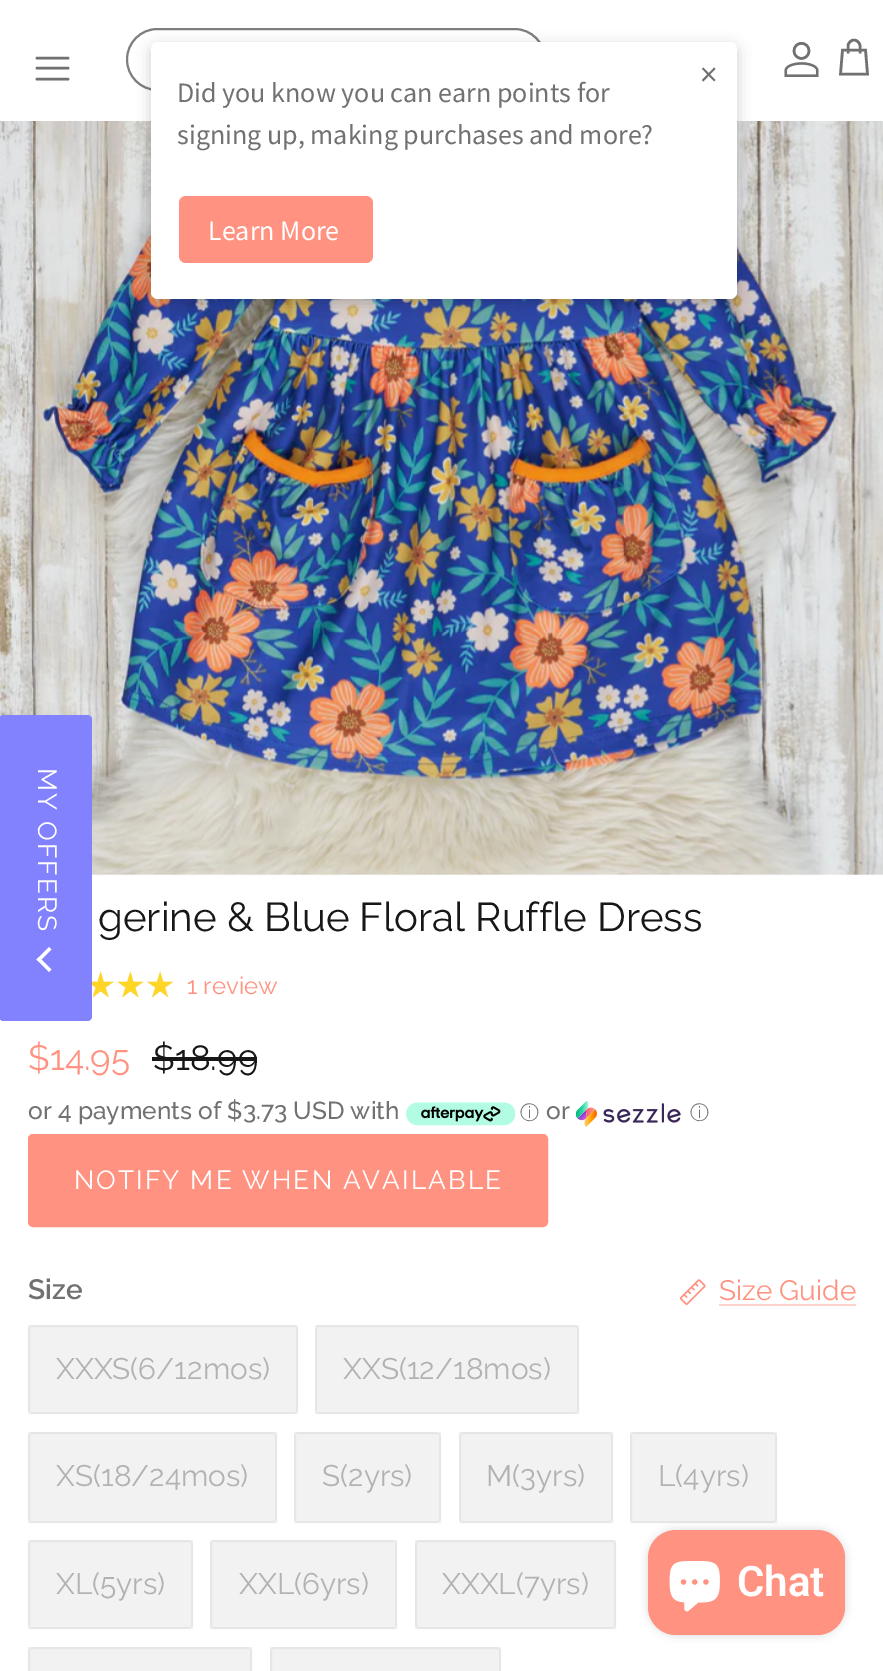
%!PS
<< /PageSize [883 1671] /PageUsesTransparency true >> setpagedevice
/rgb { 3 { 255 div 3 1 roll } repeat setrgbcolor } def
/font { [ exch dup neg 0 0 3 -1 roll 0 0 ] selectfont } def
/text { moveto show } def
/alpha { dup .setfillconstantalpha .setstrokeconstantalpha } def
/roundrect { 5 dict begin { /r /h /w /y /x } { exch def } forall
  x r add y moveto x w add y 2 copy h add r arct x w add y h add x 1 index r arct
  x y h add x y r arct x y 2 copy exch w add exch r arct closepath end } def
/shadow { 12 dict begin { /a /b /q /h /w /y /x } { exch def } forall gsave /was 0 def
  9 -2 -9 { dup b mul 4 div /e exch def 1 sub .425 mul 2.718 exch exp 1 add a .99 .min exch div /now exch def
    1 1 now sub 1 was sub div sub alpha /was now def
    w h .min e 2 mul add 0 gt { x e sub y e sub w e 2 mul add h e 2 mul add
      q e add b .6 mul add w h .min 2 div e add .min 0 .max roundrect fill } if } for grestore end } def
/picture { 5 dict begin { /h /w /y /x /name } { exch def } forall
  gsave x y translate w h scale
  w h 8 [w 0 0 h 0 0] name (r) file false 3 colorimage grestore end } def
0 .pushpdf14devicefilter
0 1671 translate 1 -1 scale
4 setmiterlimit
255 255 255 rgb
0 0 883 1671 rectfill
112 113 115 rgb
2.6 setlinewidth
1 setlinecap
1 setlinejoin
37 68 moveto 31 0 rlineto 37 58 moveto 31 0 rlineto 37 79 moveto 31 0 rlineto stroke
126 126 126 rgb
2 setlinewidth
0 setlinecap
0 setlinejoin
127 29 418 61 30.5 roundrect stroke
(img_01.rgb) 784 42 35 35 picture
112 113 115 rgb
2.6 setlinewidth
860 53.5 moveto 0 -7.5 rlineto 0 -3 -3 -6 -6 -6 rcurveto -3 0 -6 3 -6 6 rcurveto 0 7.5 rlineto 842.5 50 moveto 23 0 rlineto 2 24 rlineto -27 0 rlineto closepath stroke
(img_02.rgb) 0 121 883 754 picture
0 0 0 rgb
151 46 586 257 7 7 0.2 shadow
255 255 255 rgb
151 42 586 257 7 roundrect fill
255 146 128 rgb
179 196 194 67 7 roundrect fill
130 130 255 rgb
92 720 moveto 0 296 rlineto 0 3 -2 5 -5 5 rcurveto -83 0 rlineto -3 0 -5 -2 -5 -5 rcurveto 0 -296 rlineto 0 -3 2 -5 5 -5 rcurveto 83 0 rlineto 3 0 5 2 5 5 rcurveto closepath fill
1.8 setlinewidth
91 720 moveto 0 296 rlineto 0 2.5 -2 4 -4.5 4 rcurveto -82 0 rlineto -2.5 0 -4.5 -1.5 -4.5 -4 rcurveto 0 -296 rlineto 0 -2.5 2 -4 4.5 -4 rcurveto 82 0 rlineto 2.5 0 4.5 1.5 4.5 4 rcurveto closepath stroke
255 255 255 rgb
51.5 969.5 moveto -2.5 2.5 rlineto -12.5 -12.5 rlineto 2.5 -2.5 rlineto closepath fill
51.5 949.5 moveto -12.5 12.5 rlineto -2.5 -2.5 rlineto 12.5 -12.5 rlineto closepath fill
(img_03.rgb) 92 971 81 26 picture
(img_04.rgb) 92 971 81 27 picture
23 23 23 rgb
152 1057 105 4 rectfill
(img_05.rgb) 406 1102 109 24 picture
(img_06.rgb) 576 1101 105 26 picture
255 146 128 rgb
29 1135 518 91 4 roundrect gsave fill grestore
2 setlinewidth
stroke
(img_07.rgb) 679 1279 27 26 picture
255 211 204 rgb
719 1304 137 2 rectfill
242 242 242 rgb
28 1325 270 89 5 roundrect fill
0.05 alpha
0 0 0 rgb
29 1326 268 87 rectstroke
1 alpha
242 242 242 rgb
315 1325 264 89 5 roundrect fill
0.05 alpha
0 0 0 rgb
316 1326 262 87 rectstroke
1 alpha
242 242 242 rgb
28 1432 249 91 5 roundrect fill
0.05 alpha
0 0 0 rgb
29 1433 247 89 rectstroke
1 alpha
242 242 242 rgb
294 1432 147 91 5 roundrect fill
0.05 alpha
0 0 0 rgb
295 1433 145 89 rectstroke
1 alpha
242 242 242 rgb
459 1432 154 91 5 roundrect fill
0.05 alpha
0 0 0 rgb
460 1433 152 89 rectstroke
1 alpha
242 242 242 rgb
630 1432 147 91 5 roundrect fill
0.05 alpha
0 0 0 rgb
631 1433 145 89 rectstroke
1 alpha
242 242 242 rgb
28 1540 165 89 5 roundrect fill
0.05 alpha
0 0 0 rgb
29 1541 163 87 rectstroke
1 alpha
242 242 242 rgb
210 1540 187 89 5 roundrect fill
0.05 alpha
0 0 0 rgb
211 1541 185 87 rectstroke
1 alpha
242 242 242 rgb
415 1540 201 89 5 roundrect fill
0.05 alpha
0 0 0 rgb
416 1541 199 87 rectstroke
1 alpha
242 242 242 rgb
28 1647 224 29 5 roundrect fill
0.05 alpha
0 0 0 rgb
29 1648 222 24 rectstroke
1 alpha
242 242 242 rgb
270 1647 231 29 5 roundrect fill
0.05 alpha
0 0 0 rgb
271 1648 229 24 rectstroke
1 alpha
648 1530 197 105 28 4.5 0.15 shadow
255 146 128 rgb
648 1530 197 105 28 roundrect fill
(img_08.rgb) 669 1561 51 51 picture
/SourceSansPro-Regular 35 font
112 113 115 rgb
(×) 700 86 text
/SourceSansPro-Regular 28 font
(Did you know you can earn points for) 177 102 text
(signing up, making purchases and more?) 177 144 text
255 255 255 rgb
(Learn More) 208 240 text
/Raleway-Regular 26.25 font
gsave 38 768 translate 90 rotate 0 0 moveto 2.1 0 (MY OFFERS) ashow grestore
/Raleway-Regular 40.25 font
23 23 23 rgb
(gerine & Blue Floral Ruffle Dress) 98 931 text
/Raleway-Regular 24 font
255 146 128 rgb
(1 review) 187 994 text
/Raleway-Regular 35 font
($14.95) 28 1070 text
23 23 23 rgb
($18.99) 153 1070 text
/Raleway-Medium 24.5 font
112 113 115 rgb
(or 4 payments of $3.73 USD with) 28 1119 text
/WenQuanYiZenHei-Medium 19 font
(ⓘ) 520 1119 text
/Raleway-Medium 24.5 font
(or) 546 1119 text
/WenQuanYiZenHei-Medium 19 font
(ⓘ) 690 1119 text
/Raleway-Regular 26.25 font
255 255 255 rgb
74 1189 moveto 2.1 0 (NOTIFY ME WHEN AVAILABLE) ashow
/Raleway-SemiBold 28 font
112 113 115 rgb
(Size) 28 1299 text
/Raleway-Regular 28 font
255 146 128 rgb
(Size Guide) 719 1300 text
/Raleway-Regular 29.75 font
177 178 179 rgb
(XXXS\(6/12mos\)) 56 1379 text
(XXS\(12/18mos\)) 343 1379 text
(XS\(18/24mos\)) 56 1486 text
(S\(2yrs\)) 322 1486 text
(M\(3yrs\)) 486 1486 text
(L\(4yrs\)) 658 1486 text
(XL\(5yrs\)) 56 1594 text
(XXL\(6yrs\)) 239 1594 text
(XXXL\(7yrs\)) 442 1594 text
/Roboto-SemiBold 42 font
255 255 255 rgb
(Chat) 737 1596 text
.poppdf14devicefilter showpage
